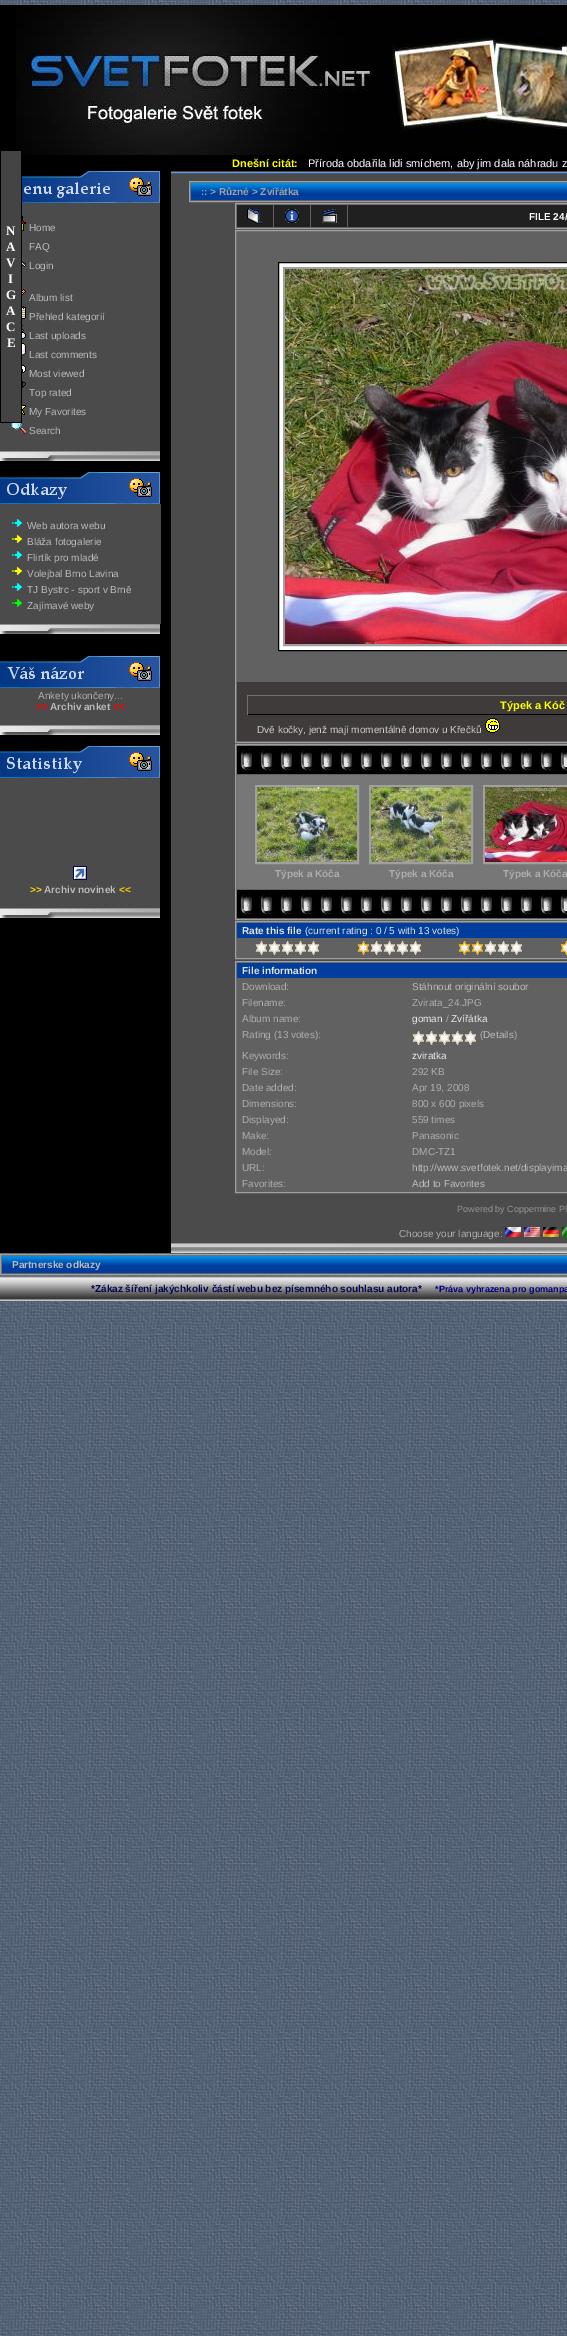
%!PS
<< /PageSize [567 2336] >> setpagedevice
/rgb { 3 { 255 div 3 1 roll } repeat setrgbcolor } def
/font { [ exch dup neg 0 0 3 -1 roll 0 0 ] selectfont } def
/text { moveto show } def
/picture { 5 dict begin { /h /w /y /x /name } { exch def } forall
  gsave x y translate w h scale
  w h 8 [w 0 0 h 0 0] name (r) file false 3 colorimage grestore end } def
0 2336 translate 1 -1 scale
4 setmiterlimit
255 255 255 rgb
0 0 567 2336 rectfill
(img_01.rgb) 0 0 567 2336 picture
0 0 0 rgb
0 5 567 166 rectfill
(img_02.rgb) 16 5 551 150 picture
0 171 171 1082 rectfill
75 75 75 rgb
11 203 149 248 rectfill
(img_13.rgb) 11 419 15 15 picture
0 0 0 rgb
11 150 11 273 rectfill
68 68 68 rgb
1 151 20 271 rectfill
(img_03.rgb) 22 171 138 32 picture
75 75 75 rgb
0 423 11 28 rectfill
(img_04.rgb) 22 216 4 15 picture
(img_05.rgb) 22 254 4 15 picture
(img_06.rgb) 22 289 4 6 picture
(img_07.rgb) 22 306 4 13 picture
(img_08.rgb) 22 325 4 14 picture
(img_09.rgb) 22 343 4 14 picture
(img_10.rgb) 22 365 4 8 picture
(img_11.rgb) 22 381 4 7 picture
(img_12.rgb) 22 405 4 10 picture
(img_14.rgb) 0 451 160 10 picture
(img_15.rgb) 0 472 160 32 picture
0 504 161 120 rectfill
(img_16.rgb) 12 519 10 8 picture
(img_17.rgb) 12 535 10 8 picture
(img_16.rgb) 12 551 10 8 picture
(img_17.rgb) 12 567 10 8 picture
(img_16.rgb) 12 583 10 8 picture
(img_18.rgb) 12 599 10 8 picture
(img_14.rgb) 0 624 160 10 picture
(img_19.rgb) 0 656 160 32 picture
0 688 160 37 rectfill
(img_14.rgb) 0 725 160 10 picture
(img_20.rgb) 0 746 160 32 picture
0 778 160 130 rectfill
(img_21.rgb) 73 866 14 14 picture
(img_14.rgb) 0 908 160 10 picture
(img_22.rgb) 171 171 396 4 picture
171 175 396 1068 rectfill
97 97 97 rgb
189.5 181.5 moveto 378 0 rlineto 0 20 rlineto -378 0 rlineto closepath gsave fill grestore
160 160 160 rgb
stroke
0 61 157 rgb
191 193 376 7 rectfill
(img_23.rgb) 191 183 376 10 picture
97 97 97 rgb
235.5 203.5 moveto 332 0 rlineto 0 25 rlineto -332 0 rlineto closepath gsave fill grestore
160 160 160 rgb
stroke
32 32 32 rgb
237 205 36 22 rectfill
(img_24.rgb) 247 208 16 16 picture
274 205 36 22 rectfill
(img_25.rgb) 285 209 14 14 picture
311 205 36 22 rectfill
(img_26.rgb) 322 209 15 14 picture
348 205 219 22 rectfill
97 97 97 rgb
235.5 230.5 moveto 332 0 rlineto 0 512 rlineto -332 0 rlineto closepath gsave fill grestore
160 160 160 rgb
stroke
255 255 255 rgb
278.5 262.5 moveto 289 0 rlineto 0 388 rlineto -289 0 rlineto closepath gsave fill grestore
0 0 0 rgb
stroke
160 160 160 rgb
2 setlinewidth
284 268 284 377 rectstroke
(img_27.rgb) 285 269 282 375 picture
63 59 59 rgb
237 682 330 59 rectfill
112 112 112 rgb
247 695 320 1 rectfill
0 0 0 rgb
247 714 320 1 rectfill
112 112 112 rgb
247 695 1 20 rectfill
(img_28.rgb) 485 718 15 15 picture
97 97 97 rgb
235.5 744.5 moveto 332 0 rlineto 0 175 rlineto -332 0 rlineto closepath gsave fill grestore
160 160 160 rgb
1 setlinewidth
stroke
(img_29.rgb) 237 746 330 28 picture
119 119 119 rgb
237 775 330 114 rectfill
160 160 160 rgb
2 setlinewidth
256 786 102 77 rectstroke
(img_30.rgb) 257 787 100 75 picture
370 786 102 77 rectstroke
(img_31.rgb) 371 787 100 75 picture
484 786 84 77 rectstroke
(img_32.rgb) 485 787 82 75 picture
(img_29.rgb) 237 890 330 28 picture
97 97 97 rgb
235.5 921.5 moveto 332 0 rlineto 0 37 rlineto -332 0 rlineto closepath gsave fill grestore
160 160 160 rgb
1 setlinewidth
stroke
0 61 157 rgb
237 923 330 15 rectfill
(img_33.rgb) 255 941 65 14 picture
(img_34.rgb) 357 941 65 14 picture
(img_35.rgb) 458 941 65 14 picture
(img_36.rgb) 560 941 7 14 picture
97 97 97 rgb
235.5 961.5 moveto 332 0 rlineto 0 231 rlineto -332 0 rlineto closepath gsave fill grestore
160 160 160 rgb
stroke
0 61 157 rgb
237 963 330 15 rectfill
(img_33.rgb) 412 1031 65 14 picture
(img_37.rgb) 505 1227 16 10 picture
(img_38.rgb) 524 1227 16 10 picture
(img_39.rgb) 543 1227 16 10 picture
(img_40.rgb) 562 1227 5 10 picture
(img_41.rgb) 171 1243 396 10 picture
97 97 97 rgb
0.5 1254.5 moveto 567 0 rlineto 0 20 rlineto -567 0 rlineto closepath gsave fill grestore
160 160 160 rgb
stroke
0 61 157 rgb
2 1266 565 7 rectfill
(img_42.rgb) 2 1256 565 10 picture
(img_43.rgb) 0 1276 567 25 picture
/LiberationSerif-Bold 13 font
255 255 255 rgb
(N) 6 235 text
(A) 6 251 text
(V) 6 267 text
(I) 8 283 text
(G) 6 299 text
(A) 6 315 text
(C) 6 331 text
(E) 7 347 text
/LiberationSans-Bold 11 font
252 251 4 rgb
(Dnešní citát:) 232 167 text
/LiberationSans-Regular 11 font
255 255 255 rgb
(Příroda obdařila lidi smíchem, aby jim dala náhradu z) 308 167 text
/LiberationSans-Regular 10 font
187 187 187 rgb
(Home) 29 231 text
(FAQ) 29 250 text
(Login) 29 269 text
(Album list) 29 301 text
(Přehled kategorií) 29 320 text
(Last uploads) 29 339 text
(Last comments) 29 358 text
(Most viewed) 29 377 text
(Top rated) 29 396 text
(My Favorites) 29 415 text
(Search) 29 434 text
(Web autora webu) 27 529 text
(Bláža fotogalerie) 27 545 text
(Flirtík pro mladé) 27 561 text
(Volejbal Brno Lavina) 27 577 text
(TJ Bystrc - sport v Brně) 27 593 text
(Zajímavé weby) 27 609 text
174 174 174 rgb
(Ankety ukončeny...) 38 699 text
/LiberationSans-Bold 10 font
255 0 0 rgb
(>>) 36 710 text
187 187 187 rgb
(Archiv anket) 50 710 text
255 0 0 rgb
(<<) 113 710 text
243 212 3 rgb
(>>) 30 893 text
187 187 187 rgb
(Archiv novinek) 44 893 text
243 212 3 rgb
(<<) 119 893 text
160 160 160 rgb
(:: > Různé > Zvířátka) 201 195 text
255 255 255 rgb
(FILE 24/) 529 220 text
/LiberationSans-Bold 11 font
252 251 4 rgb
(Týpek a Kóč) 500 709 text
/LiberationSans-Regular 10 font
204 204 204 rgb
(Dvě kočky, jenž mají momentálně domov u Křečků) 257 733 text
/LiberationSans-Bold 10 font
174 174 174 rgb
(Týpek a Kóča) 275 877 text
(Týpek a Kóča) 389 877 text
(Týpek a Kóča) 503 877 text
228 228 228 rgb
(Rate this file) 242 934 text
/LiberationSans-Regular 10 font
(\(current rating : 0 / 5 with 13 votes\)) 305 934 text
/LiberationSans-Bold 10 font
(File information) 242 974 text
/LiberationSans-Regular 10 font
174 174 174 rgb
(Download:) 242 990 text
187 187 187 rgb
(Stáhnout originální soubor) 412 990 text
174 174 174 rgb
(Filename:) 242 1006 text
(Zvirata_24.JPG) 412 1006 text
(Album name:) 242 1022 text
234 234 234 rgb
(goman) 412 1022 text
174 174 174 rgb
(/) 446 1022 text
234 234 234 rgb
(Zvířátka) 451 1022 text
174 174 174 rgb
(Rating \(13 votes\):) 242 1038 text
(\() 480 1038 text
187 187 187 rgb
(Details) 483 1038 text
174 174 174 rgb
(\)) 514 1038 text
(Keywords:) 242 1059 text
234 234 234 rgb
(zviratka) 412 1059 text
174 174 174 rgb
(File Size:) 242 1075 text
(292 KB) 412 1075 text
(Date added:) 242 1091 text
(Apr 19, 2008) 412 1091 text
(Dimensions:) 242 1107 text
(800 x 600 pixels) 412 1107 text
(Displayed:) 242 1123 text
(559 times) 412 1123 text
(Make:) 242 1139 text
(Panasonic) 412 1139 text
(Model:) 242 1155 text
(DMC-TZ1) 412 1155 text
(URL:) 242 1171 text
187 187 187 rgb
(http://www.svetfotek.net/displayima) 412 1171 text
174 174 174 rgb
(Favorites:) 242 1187 text
187 187 187 rgb
(Add to Favorites) 412 1187 text
/LiberationSans-Regular 9 font
148 148 148 rgb
(Powered by Coppermine Ph) 457 1212 text
/LiberationSans-Regular 10 font
174 174 174 rgb
(Choose your language:) 399 1237 text
/LiberationSans-Bold 10 font
187 187 187 rgb
(Partnerske odkazy) 12 1268 text
1 8 78 rgb
(*Zákaz šíření jakýchkoliv částí webu bez písemného souhlasu autora*) 91 1292 text
/LiberationSans-Bold 9 font
0 0 128 rgb
(*Práva vyhrazena pro gomanpa) 435 1292 text
showpage
